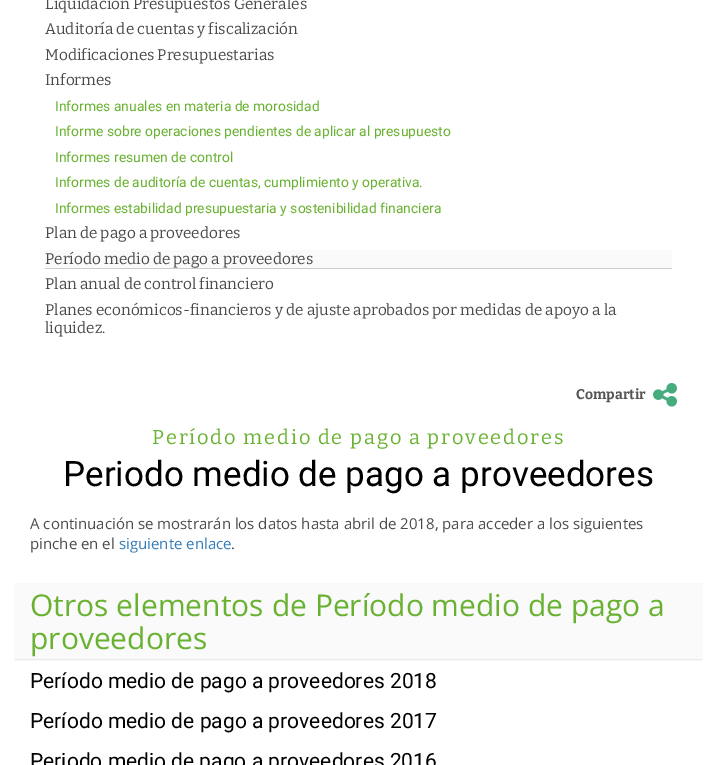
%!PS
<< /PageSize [717 765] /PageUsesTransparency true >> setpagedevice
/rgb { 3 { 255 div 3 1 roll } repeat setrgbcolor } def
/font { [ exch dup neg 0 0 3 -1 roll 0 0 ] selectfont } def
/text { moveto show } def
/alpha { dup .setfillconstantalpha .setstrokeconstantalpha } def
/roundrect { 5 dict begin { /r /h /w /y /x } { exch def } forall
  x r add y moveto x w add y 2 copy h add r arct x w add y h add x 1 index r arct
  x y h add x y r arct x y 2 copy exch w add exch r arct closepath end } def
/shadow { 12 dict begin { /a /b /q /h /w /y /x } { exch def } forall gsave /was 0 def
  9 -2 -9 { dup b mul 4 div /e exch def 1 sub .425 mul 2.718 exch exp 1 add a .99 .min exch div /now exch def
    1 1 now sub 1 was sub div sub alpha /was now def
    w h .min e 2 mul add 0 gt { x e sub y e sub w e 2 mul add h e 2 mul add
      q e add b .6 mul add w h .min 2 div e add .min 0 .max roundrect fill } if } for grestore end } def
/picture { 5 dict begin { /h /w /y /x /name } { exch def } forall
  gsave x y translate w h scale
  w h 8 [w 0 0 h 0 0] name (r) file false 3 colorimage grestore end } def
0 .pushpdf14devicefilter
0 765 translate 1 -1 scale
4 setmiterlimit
255 255 255 rgb
0 0 717 765 rectfill
204 204 204 rgb
45 268 627 1 rectfill
250 250 250 rgb
45 250 627 18 rectfill
(img_01.rgb) 653 383 24 24 picture
0 0 0 rgb
15 584 687 76 0 0.5 0.1 shadow
250 250 250 rgb
15 584 687 75 rectfill
/Bitter-Regular 15.4 font
74 74 74 rgb
(Liquidación Presupuestos Generales) 45 9 text
(Auditoría de cuentas y fiscalización) 45 34 text
(Modificaciones Presupuestarias) 45 60 text
(Informes) 45 85 text
/Roboto-Regular 13.85 font
105 178 49 rgb
(Informes anuales en materia de morosidad) 55 111 text
(Informe sobre operaciones pendientes de aplicar al presupuesto) 55 136 text
(Informes resumen de control) 55 162 text
(Informes de auditoría de cuentas, cumplimiento y operativa.) 55 187 text
(Informes estabilidad presupuestaria y sostenibilidad financiera) 55 213 text
/Bitter-Regular 15.4 font
74 74 74 rgb
(Plan de pago a proveedores) 45 238 text
(Período medio de pago a proveedores) 45 264 text
(Plan anual de control financiero) 45 289 text
(Planes económicos-financieros y de ajuste aprobados por medidas de apoyo a la) 45 315 text
(liquidez.) 45 333 text
/Bitter-Bold 14 font
85 85 85 rgb
(Compartir) 576 399 text
/Bitter-Regular 20 font
105 178 49 rgb
152 444 moveto 1.85 0 (Período medio de pago a proveedores) ashow
/Roboto-Regular 35 font
0 0 0 rgb
(Periodo medio de pago a proveedores) 63 486 text
/OpenSans-Regular 15 font
74 74 74 rgb
(A continuación se mostrarán los datos hasta abril de 2018, para acceder a los siguientes) 30 529 text
(pinche en el) 30 549 text
51 122 183 rgb
(siguiente enlace) 119 549 text
74 74 74 rgb
(.) 231 549 text
/OpenSans-Regular 30 font
105 178 49 rgb
(Otros elementos de Período medio de pago a) 30 616 text
(proveedores) 30 649 text
/Roboto-Regular 21 font
0 0 0 rgb
(Período medio de pago a proveedores 2018) 30 688 text
(Período medio de pago a proveedores 2017) 30 728 text
(Periodo medio de pago a proveedores 2016) 30 768 text
.poppdf14devicefilter showpage
